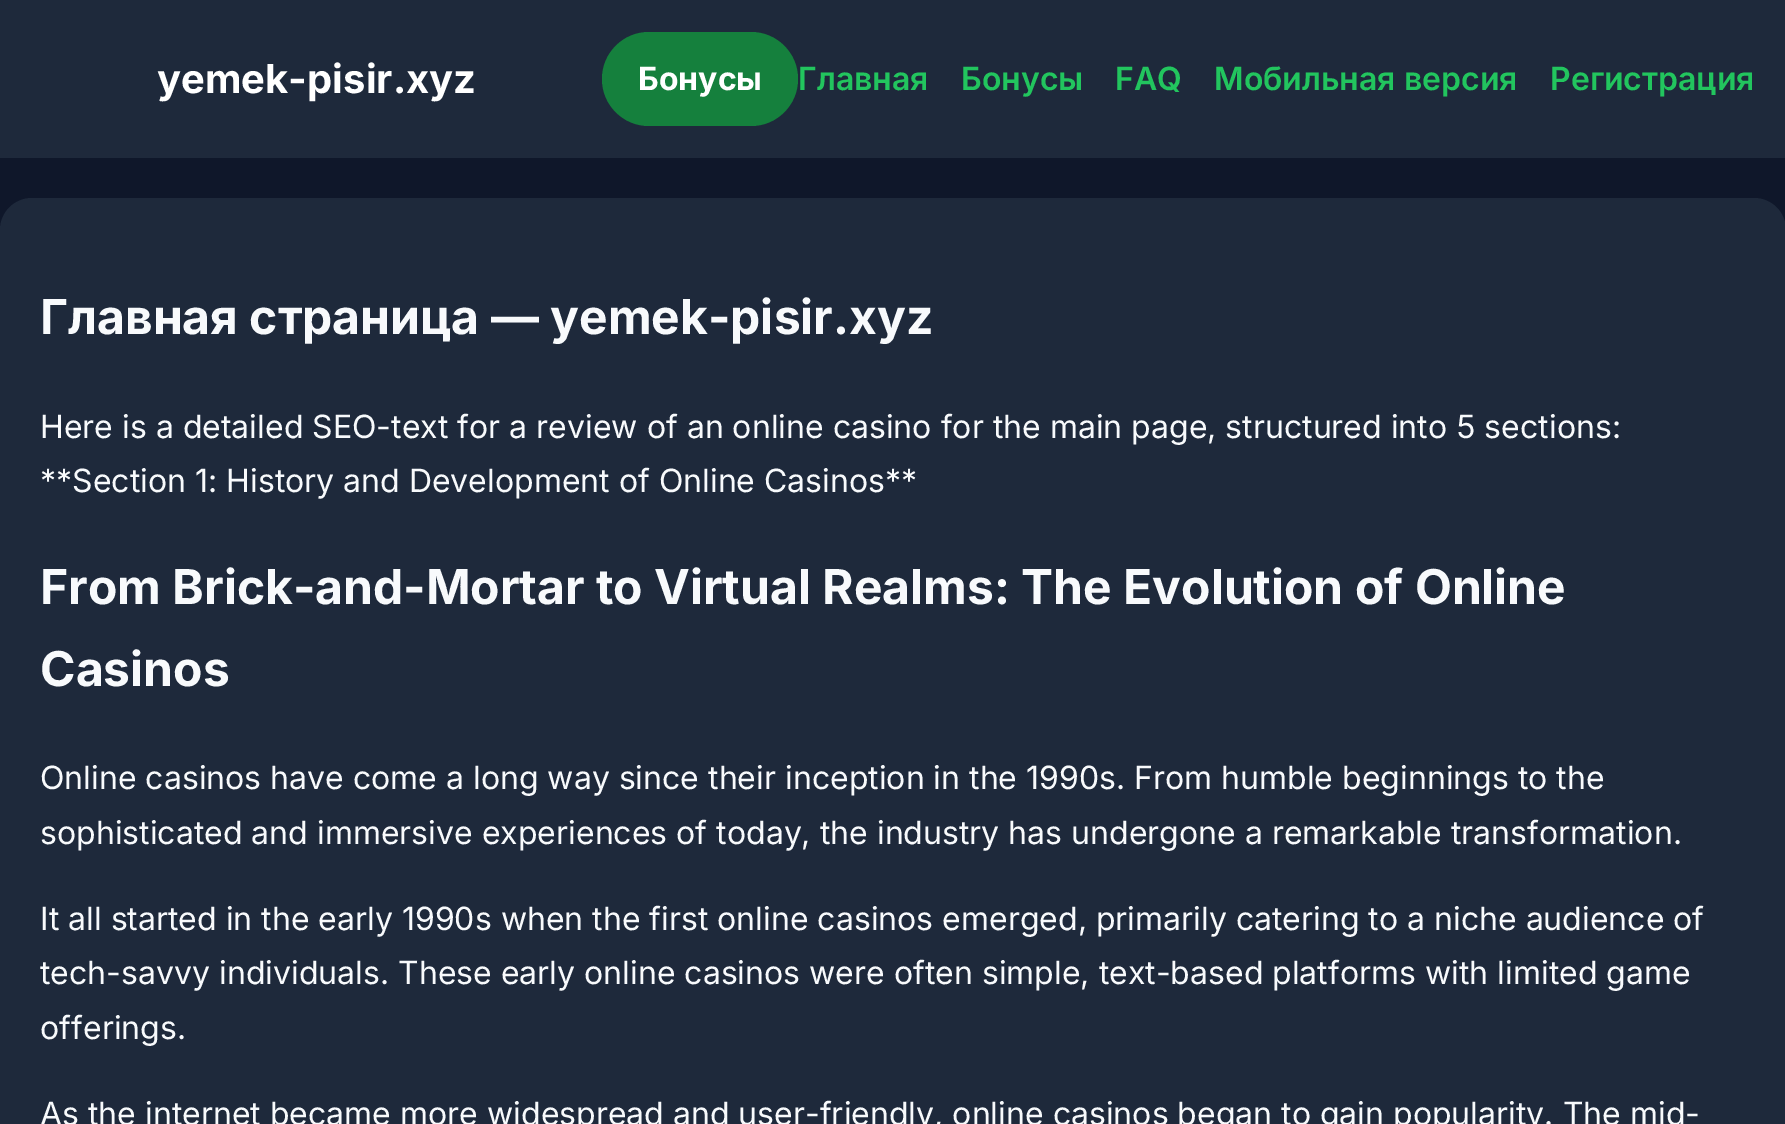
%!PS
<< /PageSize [1785 1124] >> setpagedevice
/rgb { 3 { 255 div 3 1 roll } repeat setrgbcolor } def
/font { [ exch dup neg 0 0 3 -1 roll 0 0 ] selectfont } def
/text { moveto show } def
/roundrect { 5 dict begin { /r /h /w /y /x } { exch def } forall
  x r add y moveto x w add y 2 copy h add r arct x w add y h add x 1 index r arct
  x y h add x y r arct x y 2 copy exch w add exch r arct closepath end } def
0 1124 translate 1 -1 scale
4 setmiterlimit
15 23 42 rgb
0 0 1785 1124 rectfill
30 41 59 rgb
0 0 1785 158 rectfill
21 128 61 rgb
602 32 196 94 47 roundrect fill
30 41 59 rgb
0 198 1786 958 32 roundrect fill
/Inter-Bold 40 font
255 255 255 rgb
(yemek-pisir.xyz) 157 93 text
/Inter-Bold 32 font
(Бонусы) 638 90 text
/Inter-SemiBold 32 font
34 197 94 rgb
(Главная) 798 90 text
(Бонусы) 961 90 text
(FAQ) 1115 90 text
(Мобильная версия) 1214 90 text
(Регистрация) 1550 90 text
/Inter-Bold 48 font
248 250 252 rgb
(Главная страница — yemek-pisir.xyz) 40 334 text
/Inter-Regular 32 font
(Here is a detailed SEO-text for a review of an online casino for the main page, structured into 5 sections:) 40 438 text
(**Section 1: History and Development of Online Casinos**) 40 492 text
/Inter-Bold 48 font
(From Brick-and-Mortar to Virtual Realms: The Evolution of Online) 40 604 text
(Casinos) 40 686 text
/Inter-Regular 32 font
(Online casinos have come a long way since their inception in the 1990s. From humble beginnings to the) 40 789 text
(sophisticated and immersive experiences of today, the industry has undergone a remarkable transformation.) 40 844 text
(It all started in the early 1990s when the first online casinos emerged, primarily catering to a niche audience of) 40 930 text
(tech-savvy individuals. These early online casinos were often simple, text-based platforms with limited game) 40 984 text
(offerings.) 40 1039 text
(As the internet became more widespread and user-friendly, online casinos began to gain popularity. The mid-) 40 1125 text
showpage
